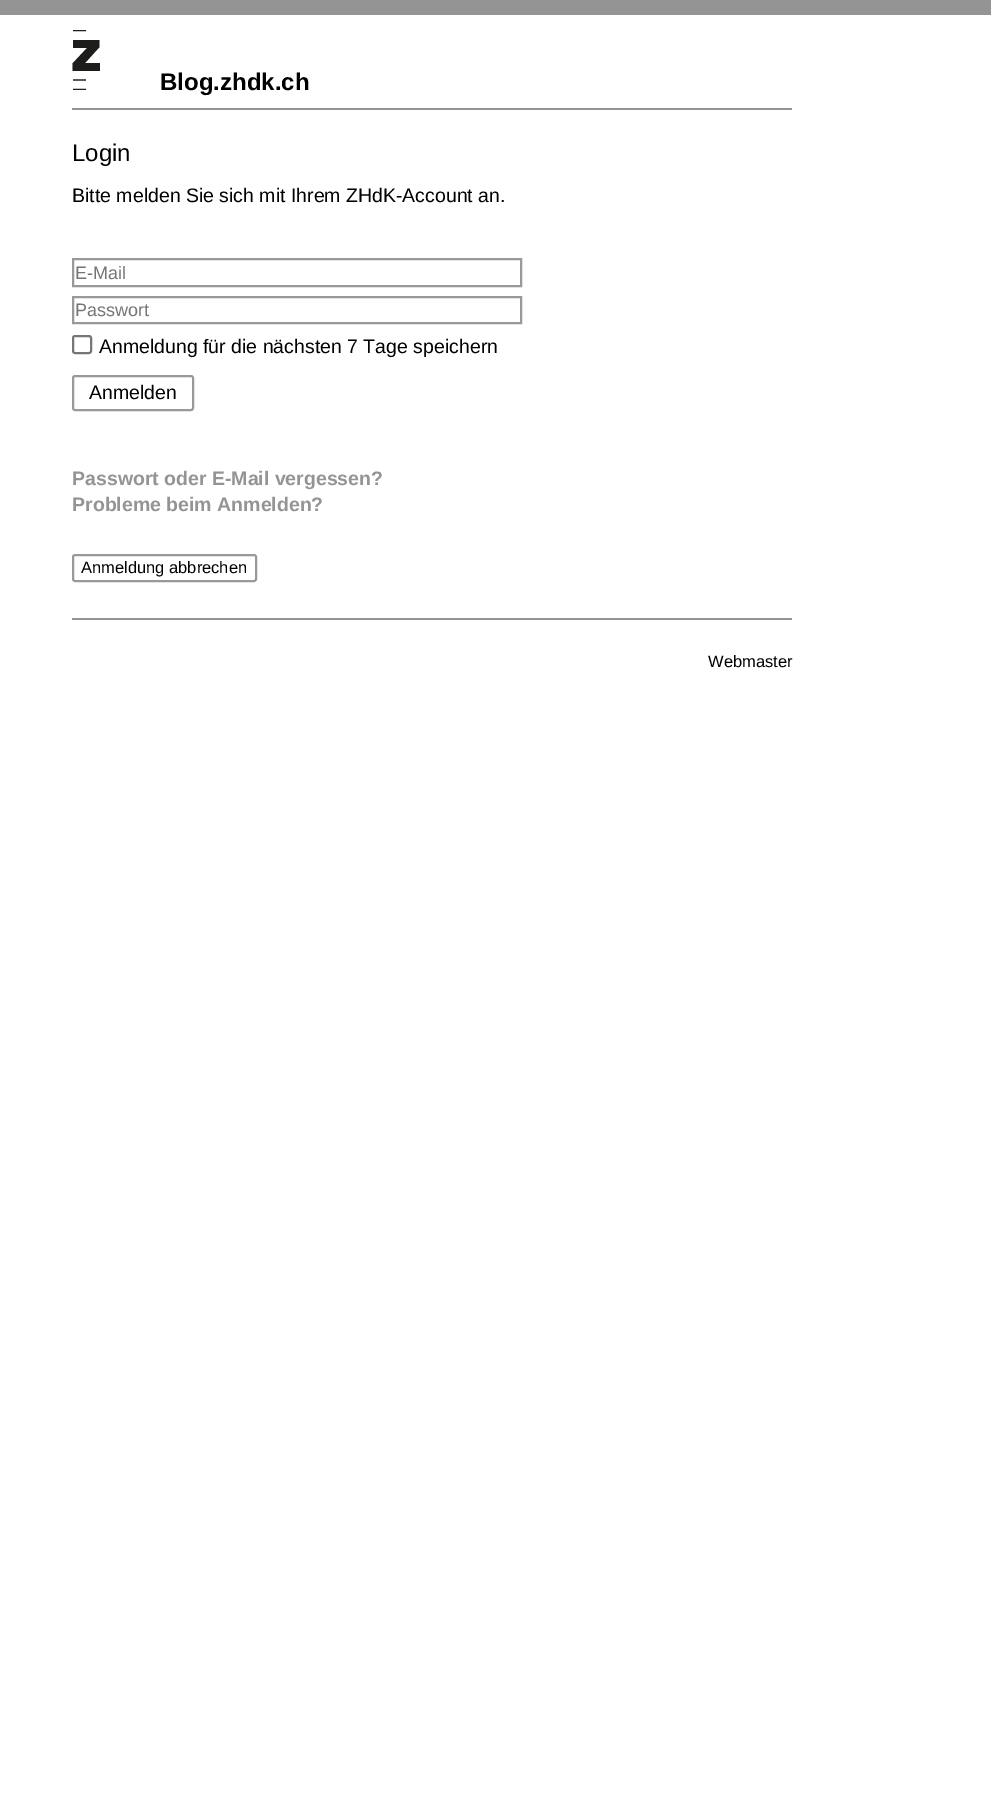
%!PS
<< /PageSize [991 1799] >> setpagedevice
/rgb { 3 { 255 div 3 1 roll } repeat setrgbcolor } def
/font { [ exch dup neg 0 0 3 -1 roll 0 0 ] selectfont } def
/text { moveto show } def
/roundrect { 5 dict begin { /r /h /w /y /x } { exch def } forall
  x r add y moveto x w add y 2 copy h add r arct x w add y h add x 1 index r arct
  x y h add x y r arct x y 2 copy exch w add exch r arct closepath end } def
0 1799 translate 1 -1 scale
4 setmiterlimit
255 255 255 rgb
0 0 991 1799 rectfill
148 148 148 rgb
0 0 991 15 rectfill
gsave
72 30 29 60 rectclip
29 29 27 rgb
1.3 setlinewidth
86 80 moveto -13 0 rlineto 86 89.5 moveto -13 0 rlineto 86 30.5 moveto -13 0 rlineto stroke
grestore
29 29 27 rgb
72.5 71 moveto 27.5 0 rlineto 0 -8 rlineto -15 0 rlineto 14.5 -16 rlineto 0 -7 rlineto -26.5 0 rlineto 0 8 rlineto 14 0 rlineto -14.5 15.5 rlineto closepath fill
148 148 148 rgb
72 108 720 2 rectfill
153 153 153 rgb
2 setlinewidth
73 259 448 27 rectstroke
73 297 448 26 rectstroke
118 118 118 rgb
73 336 18 17 2 roundrect stroke
153 153 153 rgb
73 376 120 34 2 roundrect stroke
73 555 183 26 2 roundrect stroke
148 148 148 rgb
72 618 720 2 rectfill
/LiberationSans-Bold 24 font
0 0 0 rgb
(Blog.zhdk.ch) 160 90 text
/LiberationSans-Regular 24 font
(Login) 72 161 text
/LiberationSans-Regular 19.5 font
(Bitte melden Sie sich mit Ihrem ZHdK-Account an.) 72 202 text
/LiberationSans-Regular 18 font
117 117 117 rgb
(E-Mail) 75 279 text
(Passwort) 75 316 text
/LiberationSans-Regular 19.5 font
0 0 0 rgb
(Anmeldung für die nächsten 7 Tage speichern) 99 353 text
(Anmelden) 89 399 text
/LiberationSans-Bold 19.5 font
148 148 148 rgb
(Passwort oder E-Mail vergessen?) 72 485 text
(Probleme beim Anmelden?) 72 511 text
/LiberationSans-Regular 16.5 font
0 0 0 rgb
(Anmeldung abbrechen) 81 573 text
(Webmaster) 708 667 text
showpage
